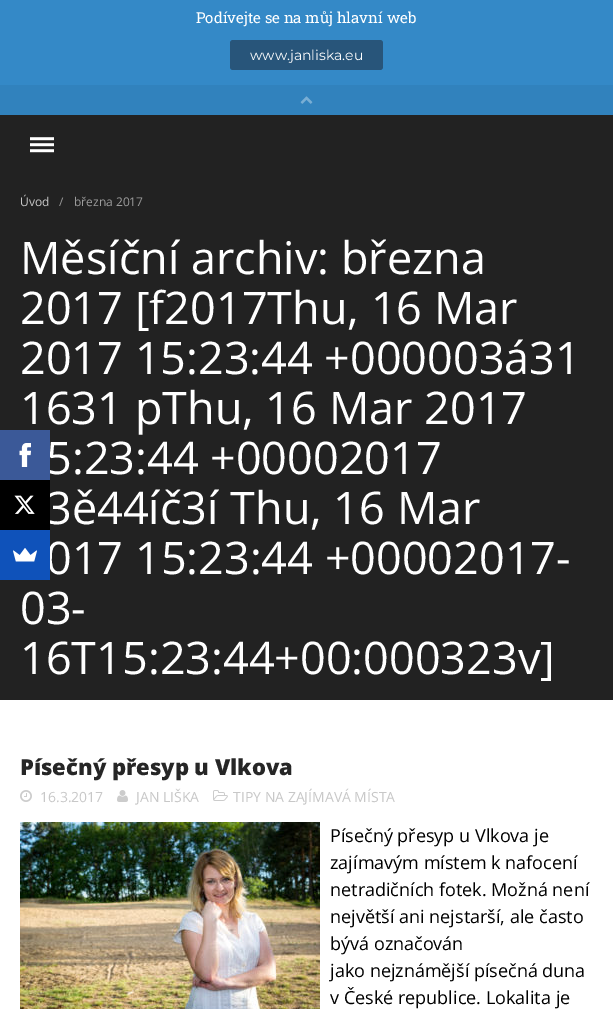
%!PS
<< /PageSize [613 1009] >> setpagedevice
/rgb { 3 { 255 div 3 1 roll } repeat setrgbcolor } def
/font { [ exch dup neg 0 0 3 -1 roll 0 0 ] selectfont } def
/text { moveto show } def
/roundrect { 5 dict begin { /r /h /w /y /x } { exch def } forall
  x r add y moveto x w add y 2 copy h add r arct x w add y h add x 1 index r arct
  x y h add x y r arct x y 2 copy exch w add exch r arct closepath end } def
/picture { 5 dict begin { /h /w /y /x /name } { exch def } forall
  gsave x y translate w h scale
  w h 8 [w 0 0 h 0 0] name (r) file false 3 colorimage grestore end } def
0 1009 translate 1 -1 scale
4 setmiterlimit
255 255 255 rgb
0 0 613 1009 rectfill
52 137 199 rgb
0 0 613 85 rectfill
40 85 122 rgb
230 40 153 30 3 roundrect fill
49 130 189 rgb
0 85 613 30 rectfill
(img_01.rgb) 300 96 13 8 picture
34 34 34 rgb
0 115 613 585 rectfill
(img_02.rgb) 30 137 24 16 picture
(img_03.rgb) 20 790 12 12 picture
(img_04.rgb) 117 790 11 12 picture
(img_05.rgb) 213 790 15 11 picture
(img_06.rgb) 20 822 300 187 picture
/RobotoSlab-Regular 15 font
255 255 255 rgb
(Podívejte se na můj hlavní web) 196 23 text
/Montserrat-Thin 14 font
(www.janliska.eu) 250 60 text
/OpenSans-Regular 12 font
200 200 200 rgb
(Úvod) 20 206 text
156 156 156 rgb
(/) 59 206 text
(března 2017) 74 206 text
/OpenSans-Regular 45 font
255 255 255 rgb
(Měsíční archiv: března) 20 274 text
(2017 [f2017Thu, 16 Mar) 20 324 text
(2017 15:23:44 +000003á31) 20 374 text
(1631 pThu, 16 Mar 2017) 20 424 text
(5:23:44 +00002017) 46 474 text
(3ě44íč3í Thu, 16 Mar) 46 524 text
(017 15:23:44 +00002017-) 46 574 text
(03-) 20 624 text
(16T15:23:44+00:000323v]) 20 674 text
/OpenSans-ExtraBold 22 font
38 38 38 rgb
(Písečný přesyp u Vlkova) 20 775 text
/OpenSans-Regular 14 font
200 200 200 rgb
(16.3.2017) 40 802 text
(JAN LIŠKA) 136 802 text
(TIPY NA ZAJÍMAVÁ MÍSTA) 233 802 text
/OpenSans-Regular 18 font
0 0 0 rgb
(Písečný přesyp u Vlkova je) 330 842 text
(zajímavým místem k nafocení) 330 869 text
(netradičních fotek. Možná není) 330 896 text
(největší ani nejstarší, ale často) 330 923 text
(bývá označován) 330 950 text
(jako nejznámější písečná duna) 330 977 text
(v České republice. Lokalita je) 330 1004 text
59 89 152 rgb
0 430 50 50 rectfill
(img_07.rgb) 19 443 12 24 picture
0 0 0 rgb
0 480 50 50 rectfill
(img_08.rgb) 14 495 21 19 picture
15 82 186 rgb
0 530 50 50 rectfill
(img_09.rgb) 13 548 24 14 picture
showpage
